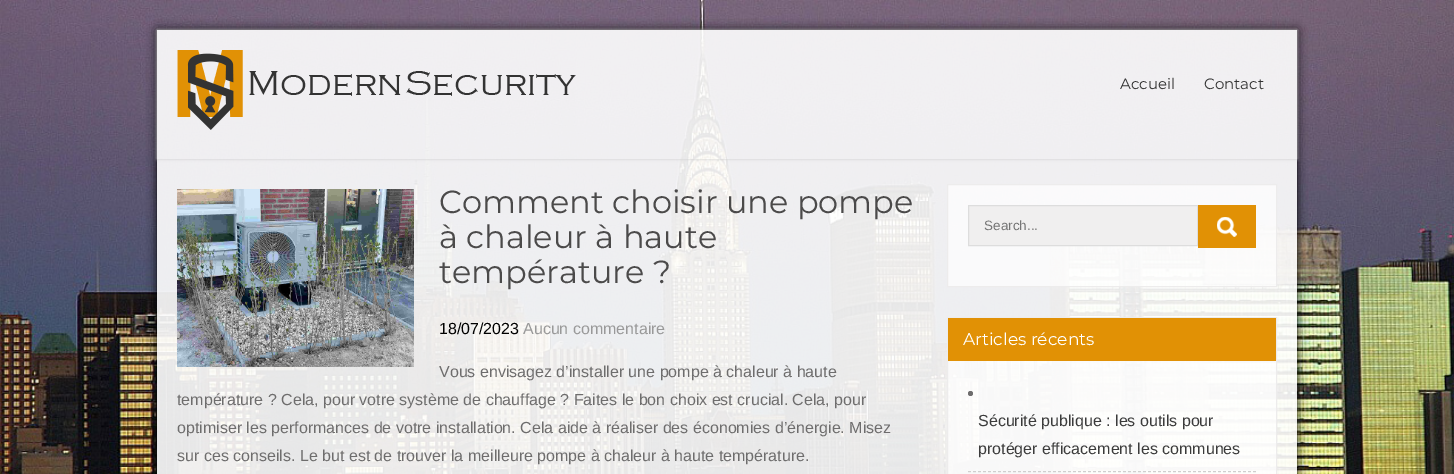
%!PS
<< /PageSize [1454 474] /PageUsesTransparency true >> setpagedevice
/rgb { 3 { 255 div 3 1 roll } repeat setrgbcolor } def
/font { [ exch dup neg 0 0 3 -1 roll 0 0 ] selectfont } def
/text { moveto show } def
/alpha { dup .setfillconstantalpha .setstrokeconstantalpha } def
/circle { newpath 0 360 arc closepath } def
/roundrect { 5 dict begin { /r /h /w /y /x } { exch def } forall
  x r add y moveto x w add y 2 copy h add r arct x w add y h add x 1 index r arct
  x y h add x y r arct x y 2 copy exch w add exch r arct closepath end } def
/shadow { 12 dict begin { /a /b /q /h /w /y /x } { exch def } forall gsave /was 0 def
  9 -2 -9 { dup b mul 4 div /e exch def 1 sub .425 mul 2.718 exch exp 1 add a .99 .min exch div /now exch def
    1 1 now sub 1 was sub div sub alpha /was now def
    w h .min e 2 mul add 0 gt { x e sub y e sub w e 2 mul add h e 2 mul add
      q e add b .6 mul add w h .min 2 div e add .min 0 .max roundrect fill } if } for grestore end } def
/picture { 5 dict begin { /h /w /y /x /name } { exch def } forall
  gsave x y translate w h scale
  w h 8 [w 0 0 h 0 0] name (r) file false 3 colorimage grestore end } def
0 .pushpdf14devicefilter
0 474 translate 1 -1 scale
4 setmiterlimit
255 255 255 rgb
0 0 1454 474 rectfill
(img_01.rgb) 0 0 1454 474 picture
gsave
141 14 moveto 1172 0 rlineto 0 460 rlineto -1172 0 rlineto closepath 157 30 moveto 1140 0 rlineto 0 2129 rlineto -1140 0 rlineto closepath eoclip newpath
0 0 0 rgb
157 30 1140 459 0 5 1 shadow
grestore
0.9 alpha
157 30 1140 444 rectfill
gsave
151 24 moveto 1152 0 rlineto 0 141 rlineto -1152 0 rlineto closepath 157 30 moveto 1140 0 rlineto 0 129 rlineto -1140 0 rlineto closepath eoclip newpath
1 alpha
204 204 204 rgb
157 30 1140 129 0 1.5 1 shadow
grestore
1 alpha
(img_02.rgb) 177 50 399 80 picture
(img_03.rgb) 177 189 237 178 picture
0.7 alpha
947.5 184.5 moveto 329 0 rlineto 0 102 rlineto -329 0 rlineto closepath fill
1 alpha
237 236 236 rgb
947.5 184.5 moveto 329 0 rlineto 0 102 rlineto -329 0 rlineto closepath stroke
240 239 239 rgb
968.5 205.5 moveto 229 0 rlineto 0 40 rlineto -229 0 rlineto closepath gsave fill grestore
221 221 221 rgb
stroke
225 145 5 rgb
1198 205 58 43 rectfill
(img_04.rgb) 1217 217 20 20 picture
0.7 alpha
255 255 255 rgb
948 361 328 113 rectfill
1 alpha
237 236 236 rgb
947.5 317.5 329 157 rectstroke
225 145 5 rgb
948 318 328 43 rectfill
208 207 207 rgb
[3 2] 0 setdash
968 471.5 moveto 288 0 rlineto stroke
110 109 109 rgb
970.5 393.5 2.5 circle fill
/Montserrat-Regular 15 font
51 51 51 rgb
(Accueil) 1120 89 text
(Contact) 1204 89 text
/Montserrat-Regular 32 font
75 74 74 rgb
(Comment choisir une pompe) 439 213 text
(à chaleur à haute) 439 248 text
(température ?) 439 283 text
/LiberationSans-Regular 16 font
0 0 0 rgb
(18/07/2023) 439 334 text
153 153 153 rgb
(Aucun commentaire) 523 334 text
110 109 109 rgb
(Vous envisagez d’installer une pompe à chaleur à haute) 439 377 text
(température ? Cela, pour votre système de chauffage ? Faites le bon choix est crucial. Cela, pour) 177 405 text
(optimiser les performances de votre installation. Cela aide à réaliser des économies d’énergie. Misez) 177 433 text
(sur ces conseils. Le but est de trouver la meilleure pompe à chaleur à haute température.) 177 461 text
/LiberationSans-Regular 13.5 font
117 117 117 rgb
(Search...) 984 230 text
/Montserrat-Regular 17 font
255 255 255 rgb
(Articles récents) 963 345 text
/LiberationSans-Regular 16 font
59 59 59 rgb
(Sécurité publique : les outils pour) 978 426 text
(protéger efficacement les communes) 978 454 text
.poppdf14devicefilter showpage
